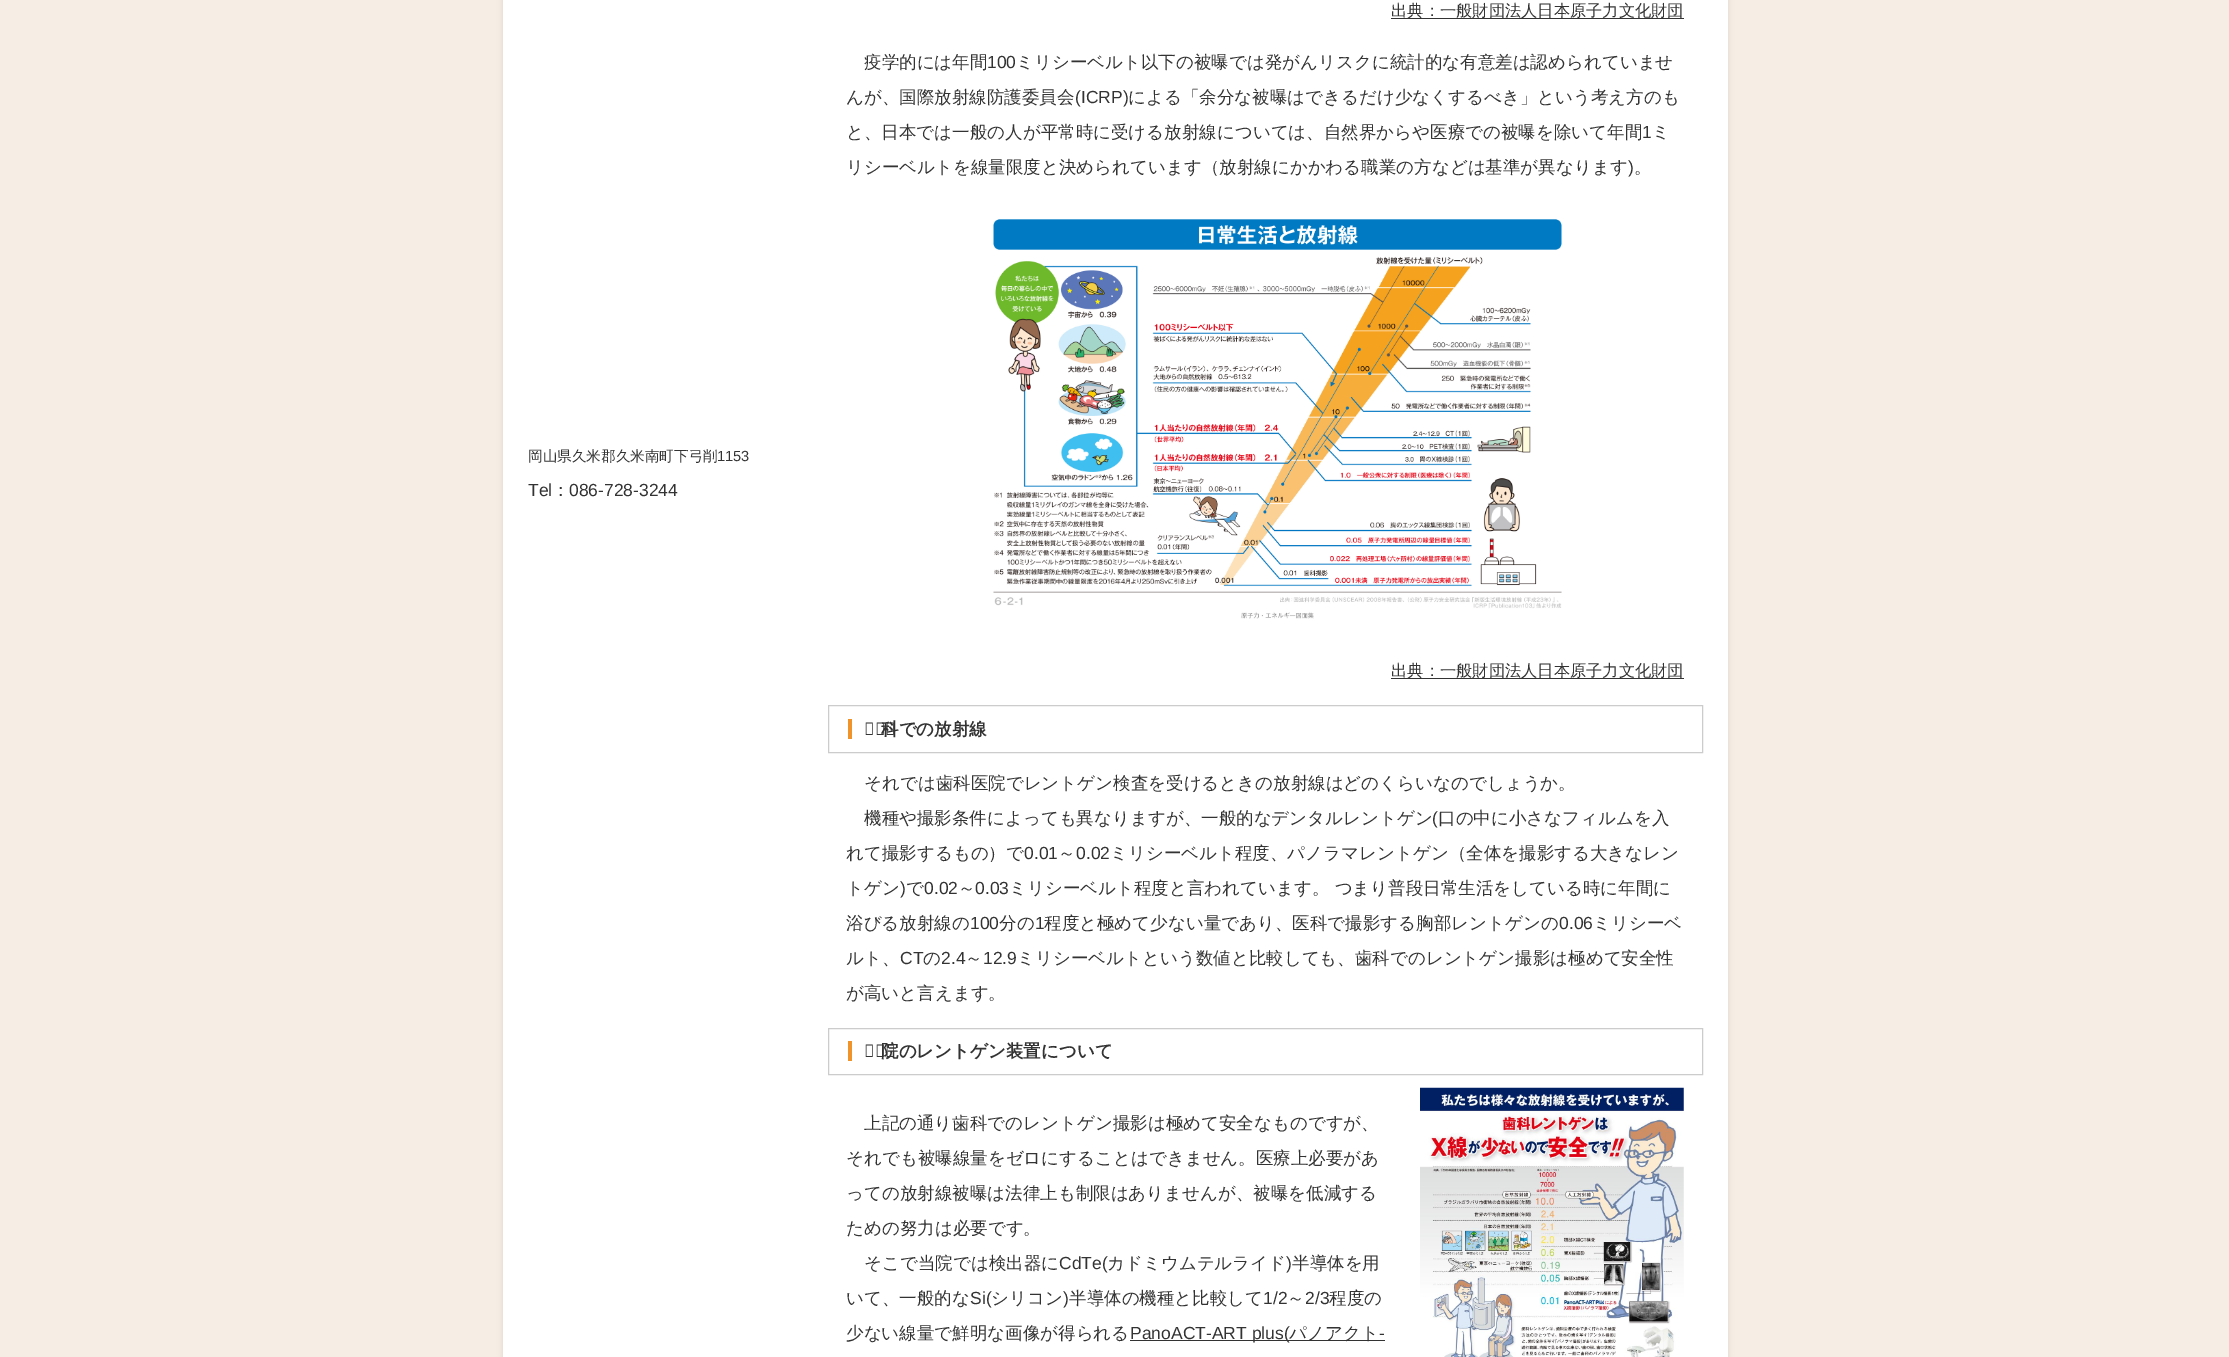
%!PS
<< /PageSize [2229 1357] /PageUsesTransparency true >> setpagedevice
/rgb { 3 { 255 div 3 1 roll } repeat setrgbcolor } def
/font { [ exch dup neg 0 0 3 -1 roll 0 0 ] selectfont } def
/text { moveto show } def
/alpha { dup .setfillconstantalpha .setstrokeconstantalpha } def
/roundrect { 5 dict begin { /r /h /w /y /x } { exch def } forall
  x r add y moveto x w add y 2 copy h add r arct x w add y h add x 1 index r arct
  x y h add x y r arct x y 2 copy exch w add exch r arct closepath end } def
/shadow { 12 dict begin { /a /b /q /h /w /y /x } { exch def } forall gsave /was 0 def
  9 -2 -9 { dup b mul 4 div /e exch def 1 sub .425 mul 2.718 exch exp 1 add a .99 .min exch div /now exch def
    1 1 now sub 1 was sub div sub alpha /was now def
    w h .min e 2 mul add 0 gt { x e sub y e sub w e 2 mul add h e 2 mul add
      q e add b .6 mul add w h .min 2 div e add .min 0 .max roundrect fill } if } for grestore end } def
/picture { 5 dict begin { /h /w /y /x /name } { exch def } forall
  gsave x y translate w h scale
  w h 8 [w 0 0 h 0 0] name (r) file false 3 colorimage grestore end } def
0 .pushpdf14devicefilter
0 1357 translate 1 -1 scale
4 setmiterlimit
246 237 228 rgb
0 0 2229 1357 rectfill
0 0 0 rgb
503 -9 1225 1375 0 3 0.1 shadow
255 255 255 rgb
503 0 1225 1357 rectfill
51 51 51 rgb
1391 18 293 1 rectfill
(img_01.rgb) 993 219 569 400 picture
1391 678 293 1 rectfill
204 204 204 rgb
828.5 705.5 874 47 rectstroke
241 147 43 rgb
848 719 4 20 rectfill
204 204 204 rgb
828.5 1028.5 874 46 rectstroke
241 147 43 rgb
848 1041 4 20 rectfill
51 51 51 rgb
1130 1340 255 1 rectfill
(img_02.rgb) 1420 1087 264 270 picture
/WenQuanYiZenHei-Medium 14.6 font
(岡山県久米郡久米南町下弓削) 528 461 text
/LiberationSans-Regular 14.6 font
(1153) 717 461 text
/LiberationSans-Regular 17.5 font
(Tel) 528 496 text
/WenQuanYiZenHei-Medium 17.5 font
(：) 552 496 text
/LiberationSans-Regular 17.5 font
(086-728-3244) 569 496 text
/WenQuanYiZenHei-Medium 16.25 font
(出典：一般財団法人日本原子力文化財団) 1391 16 text
/WenQuanYiZenHei-Medium 17.5 font
(疫学的には年間) 864 68 text
/LiberationSans-Regular 17.5 font
(100) 987 68 text
/WenQuanYiZenHei-Medium 17.5 font
(ミリシーベルト以下の被曝では発がんリスクに統計的な有意差は認められていませ) 1016 68 text
(んが、国際放射線防護委員会) 846 103 text
/LiberationSans-Regular 17.5 font
(\(ICRP\)) 1075 103 text
/WenQuanYiZenHei-Medium 17.5 font
(による「余分な被曝はできるだけ少なくするべき」という考え方のも) 1128 103 text
(と、日本では一般の人が平常時に受ける放射線については、自然界からや医療での被曝を除いて年間) 846 138 text
/LiberationSans-Regular 17.5 font
(1) 1642 138 text
/WenQuanYiZenHei-Medium 17.5 font
(ミ) 1652 138 text
(リシーベルトを線量限度と決められています（放射線にかかわる職業の方などは基準が異なります) 846 173 text
/LiberationSans-Regular 17.5 font
(\)) 1628 173 text
/WenQuanYiZenHei-Medium 17.5 font
(。) 1634 173 text
/WenQuanYiZenHei-Medium 16.25 font
(出典：一般財団法人日本原子力文化財団) 1391 676 text
/NotoSans-Thin 17.5 font
(歯) 864 735 text
/WenQuanYiZenHei-Bold 17.5 font
(科での放射線) 881 735 text
/WenQuanYiZenHei-Medium 17.5 font
(それでは歯科医院でレントゲン検査を受けるときの放射線はどのくらいなのでしょうか。) 864 789 text
(機種や撮影条件によっても異なりますが、一般的なデンタルレントゲン) 864 824 text
/LiberationSans-Regular 17.5 font
(\() 1432 824 text
/WenQuanYiZenHei-Medium 17.5 font
(口の中に小さなフィルムを入) 1438 824 text
(れて撮影するもの）で) 846 859 text
/LiberationSans-Regular 17.5 font
(0.01) 1024 859 text
/WenQuanYiZenHei-Medium 17.5 font
(～) 1058 859 text
/LiberationSans-Regular 17.5 font
(0.02) 1076 859 text
/WenQuanYiZenHei-Medium 17.5 font
(ミリシーベルト程度、パノラマレントゲン（全体を撮影する大きなレン) 1110 859 text
(トゲン) 846 894 text
/LiberationSans-Regular 17.5 font
(\)) 900 894 text
/WenQuanYiZenHei-Medium 17.5 font
(で) 906 894 text
/LiberationSans-Regular 17.5 font
(0.02) 924 894 text
/WenQuanYiZenHei-Medium 17.5 font
(～) 958 894 text
/LiberationSans-Regular 17.5 font
(0.03) 975 894 text
/WenQuanYiZenHei-Medium 17.5 font
(ミリシーベルト程度と言われています。 つまり普段日常生活をしている時に年間に) 1009 894 text
(浴びる放射線の) 846 929 text
/LiberationSans-Regular 17.5 font
(100) 970 929 text
/WenQuanYiZenHei-Medium 17.5 font
(分の) 999 929 text
/LiberationSans-Regular 17.5 font
(1) 1035 929 text
/WenQuanYiZenHei-Medium 17.5 font
(程度と極めて少ない量であり、医科で撮影する胸部レントゲンの) 1044 929 text
/LiberationSans-Regular 17.5 font
(0.06) 1559 929 text
/WenQuanYiZenHei-Medium 17.5 font
(ミリシーベ) 1593 929 text
(ルト、) 846 964 text
/LiberationSans-Regular 17.5 font
(CT) 900 964 text
/WenQuanYiZenHei-Medium 17.5 font
(の) 923 964 text
/LiberationSans-Regular 17.5 font
(2.4) 941 964 text
/WenQuanYiZenHei-Medium 17.5 font
(～) 965 964 text
/LiberationSans-Regular 17.5 font
(12.9) 983 964 text
/WenQuanYiZenHei-Medium 17.5 font
(ミリシーベルトという数値と比較しても、歯科でのレントゲン撮影は極めて安全性) 1017 964 text
(が高いと言えます。) 846 999 text
/NotoSans-Thin 17.5 font
(当) 864 1057 text
/WenQuanYiZenHei-Bold 17.5 font
(院のレントゲン装置について) 881 1057 text
/WenQuanYiZenHei-Medium 17.5 font
(上記の通り歯科でのレントゲン撮影は極めて安全なものですが、) 864 1129 text
(それでも被曝線量をゼロにすることはできません。医療上必要があ) 846 1164 text
(っての放射線被曝は法律上も制限はありませんが、被曝を低減する) 846 1199 text
(ための努力は必要です。) 846 1234 text
(そこで当院では検出器に) 864 1269 text
/LiberationSans-Regular 17.5 font
(CdTe\() 1059 1269 text
/WenQuanYiZenHei-Medium 17.5 font
(カドミウムテルライド) 1107 1269 text
/LiberationSans-Regular 17.5 font
(\)) 1286 1269 text
/WenQuanYiZenHei-Medium 17.5 font
(半導体を用) 1292 1269 text
(いて、一般的な) 846 1304 text
/LiberationSans-Regular 17.5 font
(Si\() 970 1304 text
/WenQuanYiZenHei-Medium 17.5 font
(シリコン) 991 1304 text
/LiberationSans-Regular 17.5 font
(\)) 1063 1304 text
/WenQuanYiZenHei-Medium 17.5 font
(半導体の機種と比較して) 1069 1304 text
/LiberationSans-Regular 17.5 font
(1/2) 1263 1304 text
/WenQuanYiZenHei-Medium 17.5 font
(～) 1287 1304 text
/LiberationSans-Regular 17.5 font
(2/3) 1305 1304 text
/WenQuanYiZenHei-Medium 17.5 font
(程度の) 1329 1304 text
(少ない線量で鮮明な画像が得られる) 846 1339 text
/LiberationSans-Regular 17.5 font
(PanoACT-ART plus\() 1130 1339 text
/WenQuanYiZenHei-Medium 17.5 font
(パノアクト) 1289 1339 text
/LiberationSans-Regular 17.5 font
(-) 1379 1339 text
.poppdf14devicefilter showpage
